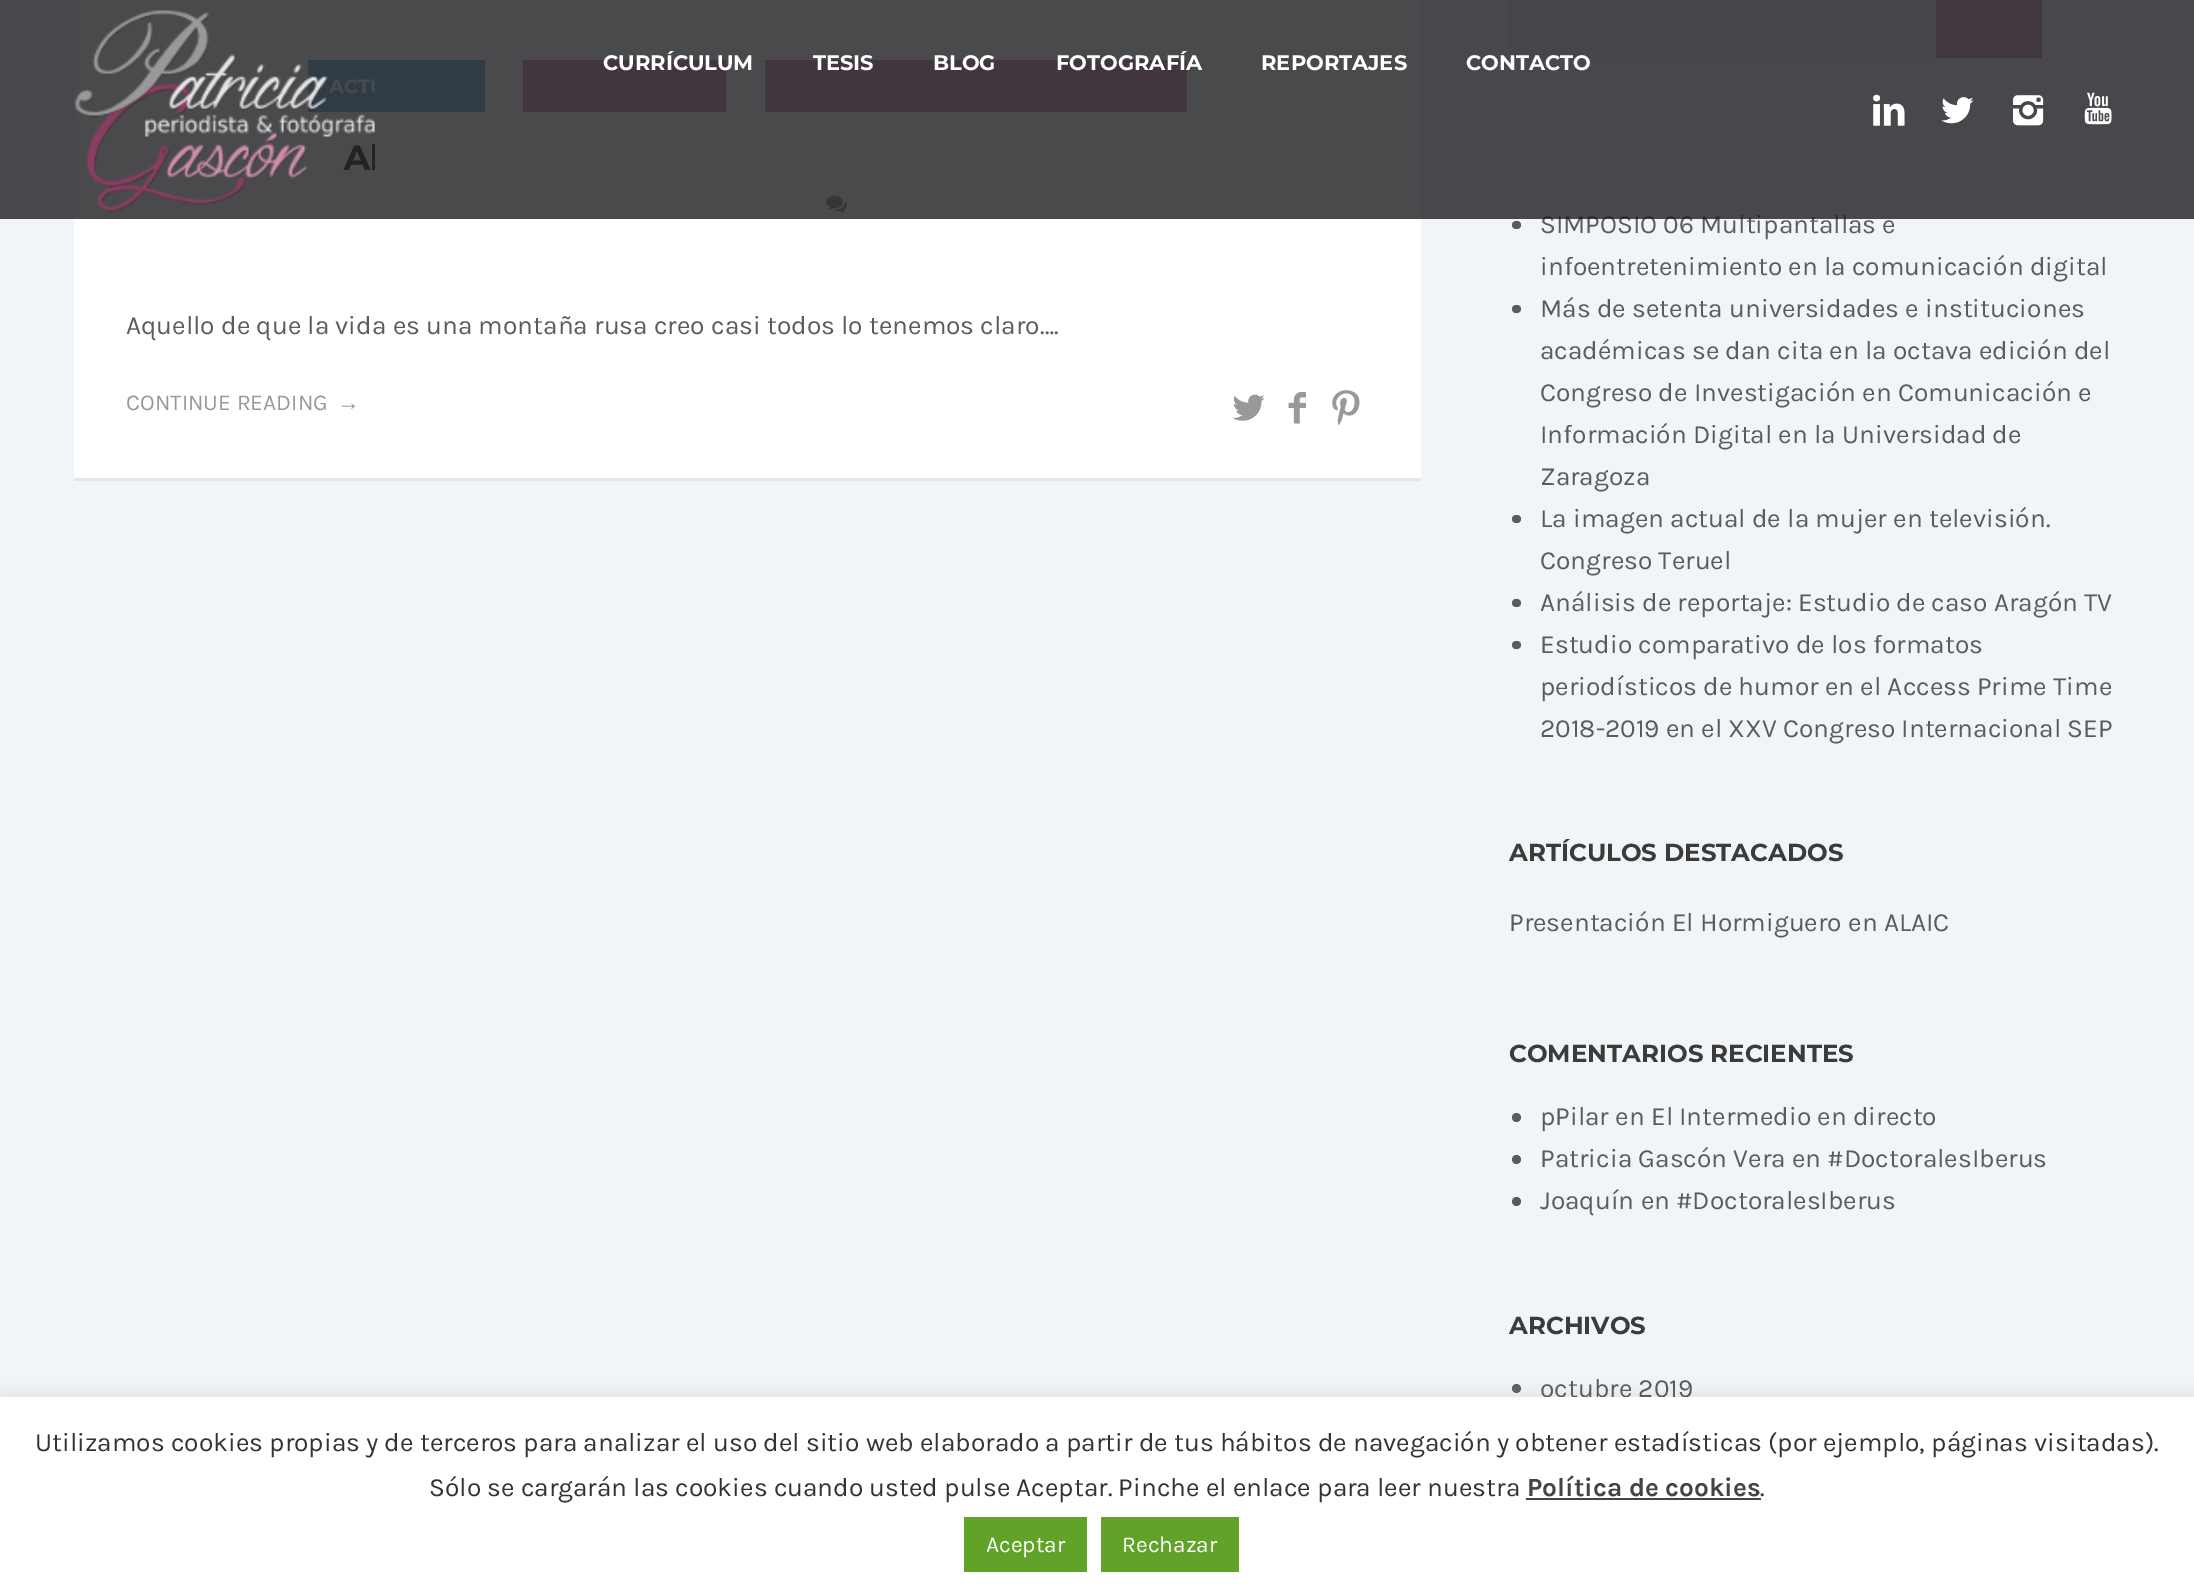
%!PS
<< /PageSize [2194 1592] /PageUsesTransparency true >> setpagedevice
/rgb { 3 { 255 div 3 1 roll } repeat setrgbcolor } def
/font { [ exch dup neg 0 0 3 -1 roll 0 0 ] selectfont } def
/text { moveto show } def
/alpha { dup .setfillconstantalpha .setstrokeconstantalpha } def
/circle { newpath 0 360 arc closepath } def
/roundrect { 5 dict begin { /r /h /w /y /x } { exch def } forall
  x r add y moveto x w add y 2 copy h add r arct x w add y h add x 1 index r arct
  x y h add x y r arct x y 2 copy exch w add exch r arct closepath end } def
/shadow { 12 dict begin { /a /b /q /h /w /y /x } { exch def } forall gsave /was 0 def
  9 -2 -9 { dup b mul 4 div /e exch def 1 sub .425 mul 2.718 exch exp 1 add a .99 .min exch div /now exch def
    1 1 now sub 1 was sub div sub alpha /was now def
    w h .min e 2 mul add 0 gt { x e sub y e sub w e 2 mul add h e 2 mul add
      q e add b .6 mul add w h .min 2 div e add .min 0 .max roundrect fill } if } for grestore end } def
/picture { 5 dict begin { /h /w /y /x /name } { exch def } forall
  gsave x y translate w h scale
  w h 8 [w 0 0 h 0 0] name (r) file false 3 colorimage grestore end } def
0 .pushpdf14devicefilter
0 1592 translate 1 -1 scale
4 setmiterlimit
242 245 247 rgb
0 0 2194 1592 rectfill
227 230 232 rgb
74 478 1347 3 rectfill
255 255 255 rgb
74 0 1347 478 rectfill
126 182 215 rgb
308 60 177 52 rectfill
211 154 181 rgb
523 60 203 52 rectfill
765 60 422 52 rectfill
(img_06.rgb) 826 195 21 18 picture
(img_07.rgb) 1232 394 33 27 picture
(img_08.rgb) 1288 392 18 32 picture
(img_09.rgb) 1332 390 28 35 picture
229 232 234 rgb
1509 0 427 58 rectfill
206 159 182 rgb
1936 0 106 58 rectfill
91 91 91 rgb
1512 221 9 8 4 roundrect fill
1512 305 9 8 4 roundrect fill
1512 515 9 8 4 roundrect fill
1512 599 9 8 4 roundrect fill
1512 641 9 8 4 roundrect fill
1516.5 1117.5 4.5 circle fill
1516.5 1159.5 4.5 circle fill
1516.5 1201.5 4.5 circle fill
1516.5 1388.5 4.5 circle fill
172 171 171 rgb
0 1395 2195 196 0 9 0.3 shadow
/Karla-Regular 26.25 font
91 91 91 rgb
(Aquello de que la vida es una montaña rusa creo casi todos lo tenemos claro….) 126 334 text
/Karla-Regular 22.75 font
153 153 153 rgb
(CONTINUE READING) 126 410 text
/LiberationSans-Regular 22.75 font
(→) 337 410 text
/Karla-Regular 26.25 font
91 91 91 rgb
(SIMPOSIO 06 Multipantallas e) 1540 233 text
0.8 alpha
29 29 33 rgb
0 0 2194 219 rectfill
/Montserrat-Bold 21 font
1 alpha
255 255 255 rgb
(CONTACTO) 1466 70 text
(REPORTAJES) 1261 70 text
(FOTOGRAFÍA) 1056 70 text
(BLOG) 933 70 text
(TESIS) 813 70 text
(CURRÍCULUM) 603 70 text
(img_01.rgb) 74 10 301 202 picture
(img_05.rgb) 2084 92 28 33 picture
(img_04.rgb) 2013 95 31 31 picture
(img_03.rgb) 1941 97 33 27 picture
(img_02.rgb) 1873 94 32 32 picture
/Karla-Regular 26.25 font
91 91 91 rgb
(infoentretenimiento en la comunicación digital) 1540 275 text
(Más de setenta universidades e instituciones) 1540 317 text
(académicas se dan cita en la octava edición del) 1540 359 text
(Congreso de Investigación en Comunicación e) 1540 401 text
(Información Digital en la Universidad de) 1540 443 text
(Zaragoza) 1540 485 text
(La imagen actual de la mujer en televisión.) 1540 527 text
(Congreso Teruel) 1540 569 text
(Análisis de reportaje: Estudio de caso Aragón TV) 1540 611 text
(Estudio comparativo de los formatos) 1540 653 text
(periodísticos de humor en el Access Prime Time) 1540 695 text
(2018-2019 en el XXV Congreso Internacional SEP) 1540 737 text
/Montserrat-Bold 24.5 font
59 59 59 rgb
(ARTÍCULOS DESTACADOS) 1509 861 text
/Karla-Regular 26.25 font
91 91 91 rgb
(Presentación El Hormiguero en ALAIC) 1509 931 text
/Montserrat-Bold 24.5 font
59 59 59 rgb
(COMENTARIOS RECIENTES) 1509 1062 text
/Karla-Regular 26.25 font
91 91 91 rgb
(pPilar en El Intermedio en directo) 1540 1125 text
(Patricia Gascón Vera en #DoctoralesIberus) 1540 1167 text
(Joaquín en #DoctoralesIberus) 1540 1209 text
/Montserrat-Bold 24.5 font
59 59 59 rgb
(ARCHIVOS) 1509 1334 text
/Karla-Regular 26.25 font
91 91 91 rgb
(octubre 2019) 1540 1397 text
255 255 255 rgb
0 1397 2194 195 rectfill
51 51 51 rgb
(Utilizamos cookies propias y de terceros para analizar el uso del sitio web elaborado a partir de tus hábitos de navegación y obtener estadísticas \(por ejemplo, páginas visitadas\).) 35 1451 text
(Sólo se cargarán las cookies cuando usted pulse Aceptar. Pinche el enlace para leer nuestra) 429 1496 text
/Karla-Bold 26.25 font
68 68 68 rgb
(Política de cookies) 1527 1496 text
/Karla-Regular 26.25 font
51 51 51 rgb
(.) 1760 1496 text
68 68 68 rgb
1526 1498 235 2 rectfill
97 162 41 rgb
964 1517 123 55 rectfill
/Karla-Regular 22.75 font
255 255 255 rgb
(Aceptar) 986 1552 text
97 162 41 rgb
1101 1517 138 55 rectfill
255 255 255 rgb
(Rechazar) 1122 1552 text
.poppdf14devicefilter showpage
